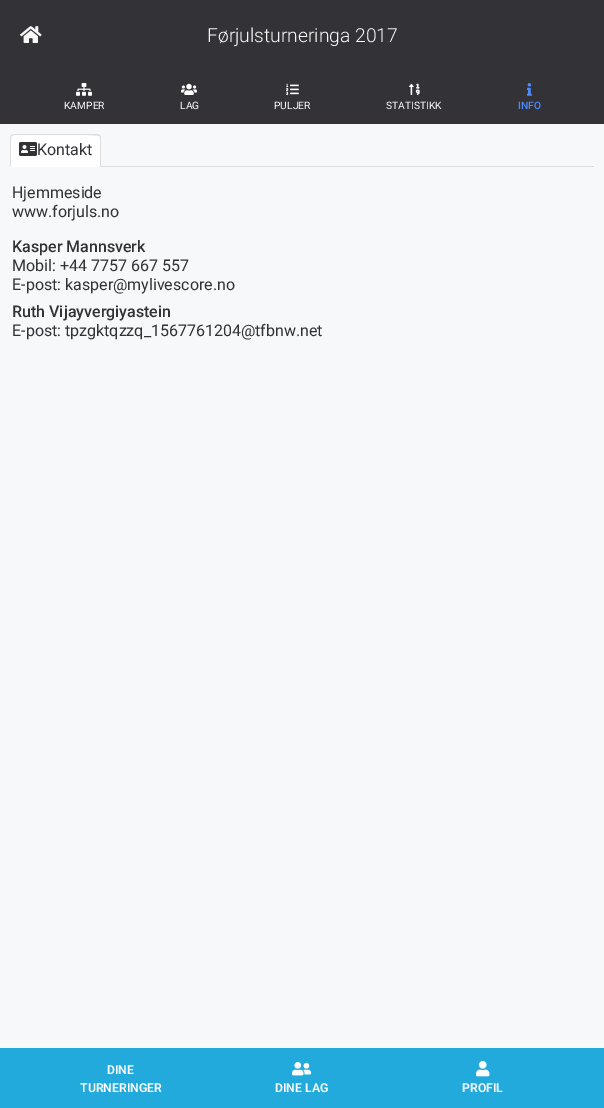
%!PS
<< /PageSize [604 1108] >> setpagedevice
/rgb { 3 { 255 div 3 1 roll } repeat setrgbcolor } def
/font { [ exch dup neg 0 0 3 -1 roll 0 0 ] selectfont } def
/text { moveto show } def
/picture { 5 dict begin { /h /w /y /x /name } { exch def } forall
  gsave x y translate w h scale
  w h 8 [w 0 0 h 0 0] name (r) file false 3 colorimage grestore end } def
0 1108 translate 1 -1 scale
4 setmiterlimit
247 248 250 rgb
0 0 604 1108 rectfill
50 50 55 rgb
0 0 604 124 rectfill
(img_01.rgb) 20 26 22 17 picture
(img_02.rgb) 76 83 16 13 picture
(img_03.rgb) 181 83 16 12 picture
(img_04.rgb) 286 83 13 12 picture
(img_05.rgb) 409 83 11 12 picture
(img_06.rgb) 527 83 5 13 picture
221 221 221 rgb
101 166 493 1 rectfill
255 255 255 rgb
14 134 moveto 83 0 rlineto 2 0 4 2 4 4 rcurveto 0 29 rlineto -91 0 rlineto 0 -29 rlineto 0 -2 2 -4 4 -4 rcurveto closepath fill
221 221 221 rgb
14 134 moveto -3 1 rlineto 1 1 rlineto 2 -1 rlineto 14 0 rlineto 7 0 69 -1 71 1 rcurveto 1 -1 rlineto -3 -1 rlineto closepath fill
101 167 moveto 0 -29 rlineto 0 -1 -0.5 -2 -1 -3 rcurveto -1 1 rlineto 1 0 1 1 1 2 rcurveto 0 28 rlineto closepath fill
10 167 moveto 1 -1 rlineto 0 -28 rlineto 0 -1 0 -2 1 -2 rcurveto -1 -1 rlineto -0.5 1 -1 2 -1 3 rcurveto closepath fill
(img_07.rgb) 19 142 18 14 picture
34 170 221 rgb
0 1048 604 60 rectfill
(img_08.rgb) 292 1062 20 14 picture
(img_09.rgb) 476 1061 14 16 picture
/Roboto-Light 19.25 font
249 249 249 rgb
(Førjulsturneringa 2017) 207 42 text
/Roboto-Regular 10.25 font
255 255 255 rgb
(KAMPER) 64 109 text
(LAG) 180 109 text
(PULJER) 274 109 text
(STATISTIKK) 386 109 text
/Roboto-Medium 10.25 font
76 138 252 rgb
(INFO) 518 109 text
/Roboto-Regular 16 font
50 50 55 rgb
(Kontakt) 37 155 text
(Hjemmeside) 12 198 text
(www.forjuls.no) 12 217 text
/Roboto-Medium 16 font
(Kasper Mannsverk) 12 252 text
/Roboto-Regular 16 font
(Mobil: +44 7757 667 557) 12 271 text
(E-post: kasper@mylivescore.no) 12 290 text
/Roboto-Medium 16 font
(Ruth Vijayvergiyastein) 12 317 text
/Roboto-Regular 16 font
(E-post: tpzgktqzzq_1567761204@tfbnw.net) 12 336 text
/Roboto-SemiBold 12.25 font
255 255 255 rgb
(DINE) 107 1074 text
(TURNERINGER) 80 1092 text
(DINE LAG) 275 1092 text
(PROFIL) 462 1092 text
showpage
